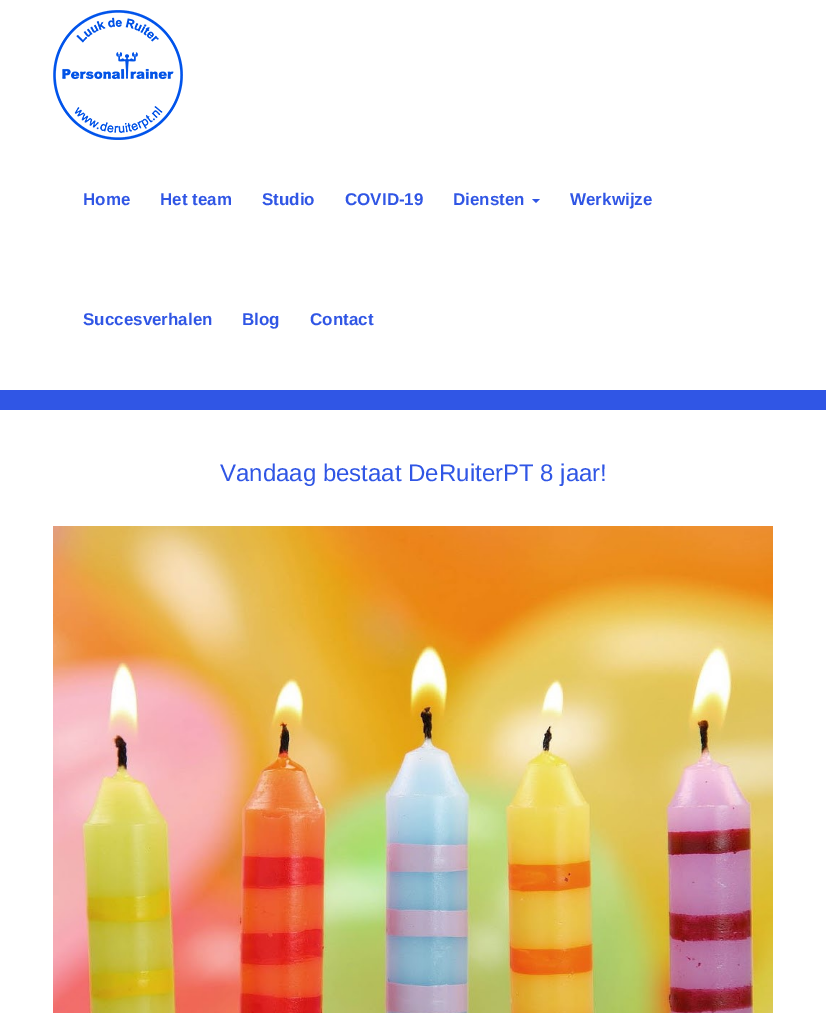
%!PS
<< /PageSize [826 1013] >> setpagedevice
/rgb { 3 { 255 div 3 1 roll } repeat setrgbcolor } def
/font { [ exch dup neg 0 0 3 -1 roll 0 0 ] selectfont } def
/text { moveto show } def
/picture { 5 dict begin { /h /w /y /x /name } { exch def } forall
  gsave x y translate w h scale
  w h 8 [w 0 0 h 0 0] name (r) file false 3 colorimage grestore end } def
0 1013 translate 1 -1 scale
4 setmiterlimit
255 255 255 rgb
0 0 826 1013 rectfill
(img_01.rgb) 53 10 130 130 picture
48 86 229 rgb
532 199 moveto 8 0 rlineto -4 4 rlineto closepath fill
0 390 826 20 rectfill
(img_02.rgb) 53 526 720 487 picture
/LiberationSans-Bold 17 font
(Home) 83 205 text
(Het team) 160 205 text
(Studio) 262 205 text
(COVID-19) 345 205 text
(Diensten) 453 205 text
(Werkwijze) 570 205 text
(Succesverhalen) 83 325 text
(Blog) 242 325 text
(Contact) 310 325 text
/LiberationSans-Regular 24 font
(Vandaag bestaat DeRuiterPT 8 jaar!) 220 481 text
showpage
